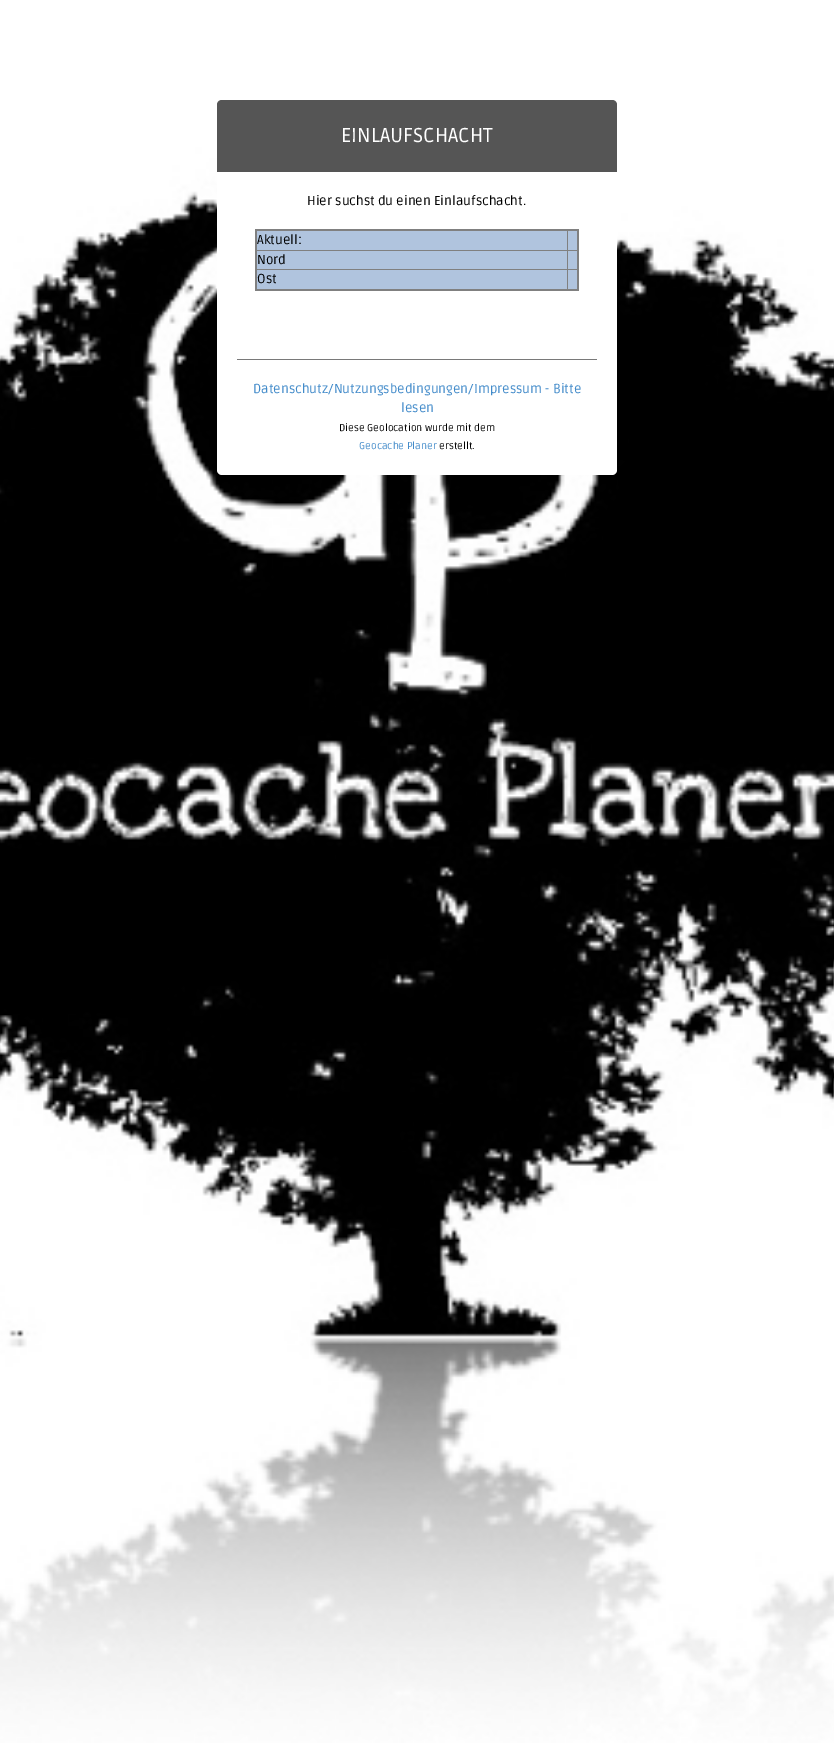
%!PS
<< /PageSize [834 1743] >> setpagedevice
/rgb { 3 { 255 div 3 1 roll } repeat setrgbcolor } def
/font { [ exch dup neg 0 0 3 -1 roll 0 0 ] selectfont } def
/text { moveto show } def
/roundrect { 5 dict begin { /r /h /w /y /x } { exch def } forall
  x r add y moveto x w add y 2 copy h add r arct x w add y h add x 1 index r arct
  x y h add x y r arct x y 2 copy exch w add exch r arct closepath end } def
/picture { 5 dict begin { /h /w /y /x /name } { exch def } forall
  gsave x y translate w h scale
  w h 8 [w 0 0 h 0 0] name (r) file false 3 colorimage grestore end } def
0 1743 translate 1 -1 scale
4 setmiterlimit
255 255 255 rgb
0 0 834 1743 rectfill
(img_01.rgb) 0 0 834 1743 picture
217 100 400 375 5 roundrect fill
85 85 85 rgb
222 100 moveto 390 0 rlineto 3 0 5 2 5 5 rcurveto 0 67 rlineto -400 0 rlineto 0 -67 rlineto 0 -3 2 -5 5 -5 rcurveto closepath fill
176 196 222 rgb
257 231 320 58 rectfill
128 128 128 rgb
567 250 12 1 rectfill
567 269 12 1 rectfill
567 269 1 21 rectfill
256 269 312 1 rectfill
567 250 1 20 rectfill
256 250 312 1 rectfill
567 230 1 21 rectfill
255 229 324 2 rectfill
577 229 2 62 rectfill
255 289 324 2 rectfill
255 229 2 62 rectfill
121 121 121 rgb
237 359 360 1 rectfill
/Ruda-Regular 20 font
255 255 255 rgb
(EINLAUFSCHACHT) 341 142 text
/Ruda-Regular 13 font
0 0 0 rgb
(Hier suchst du einen Einlaufschacht.) 307 205 text
(Aktuell:) 257 244 text
(Nord) 257 264 text
(Ost) 257 283 text
66 139 202 rgb
(Datenschutz/Nutzungsbedingungen/Impressum - Bitte) 253 393 text
(lesen) 401 412 text
/Ruda-Regular 10 font
0 0 0 rgb
(Diese Geolocation wurde mit dem) 339 431 text
66 139 202 rgb
(Geocache Planer) 359 449 text
0 0 0 rgb
(erstellt.) 439 449 text
showpage
